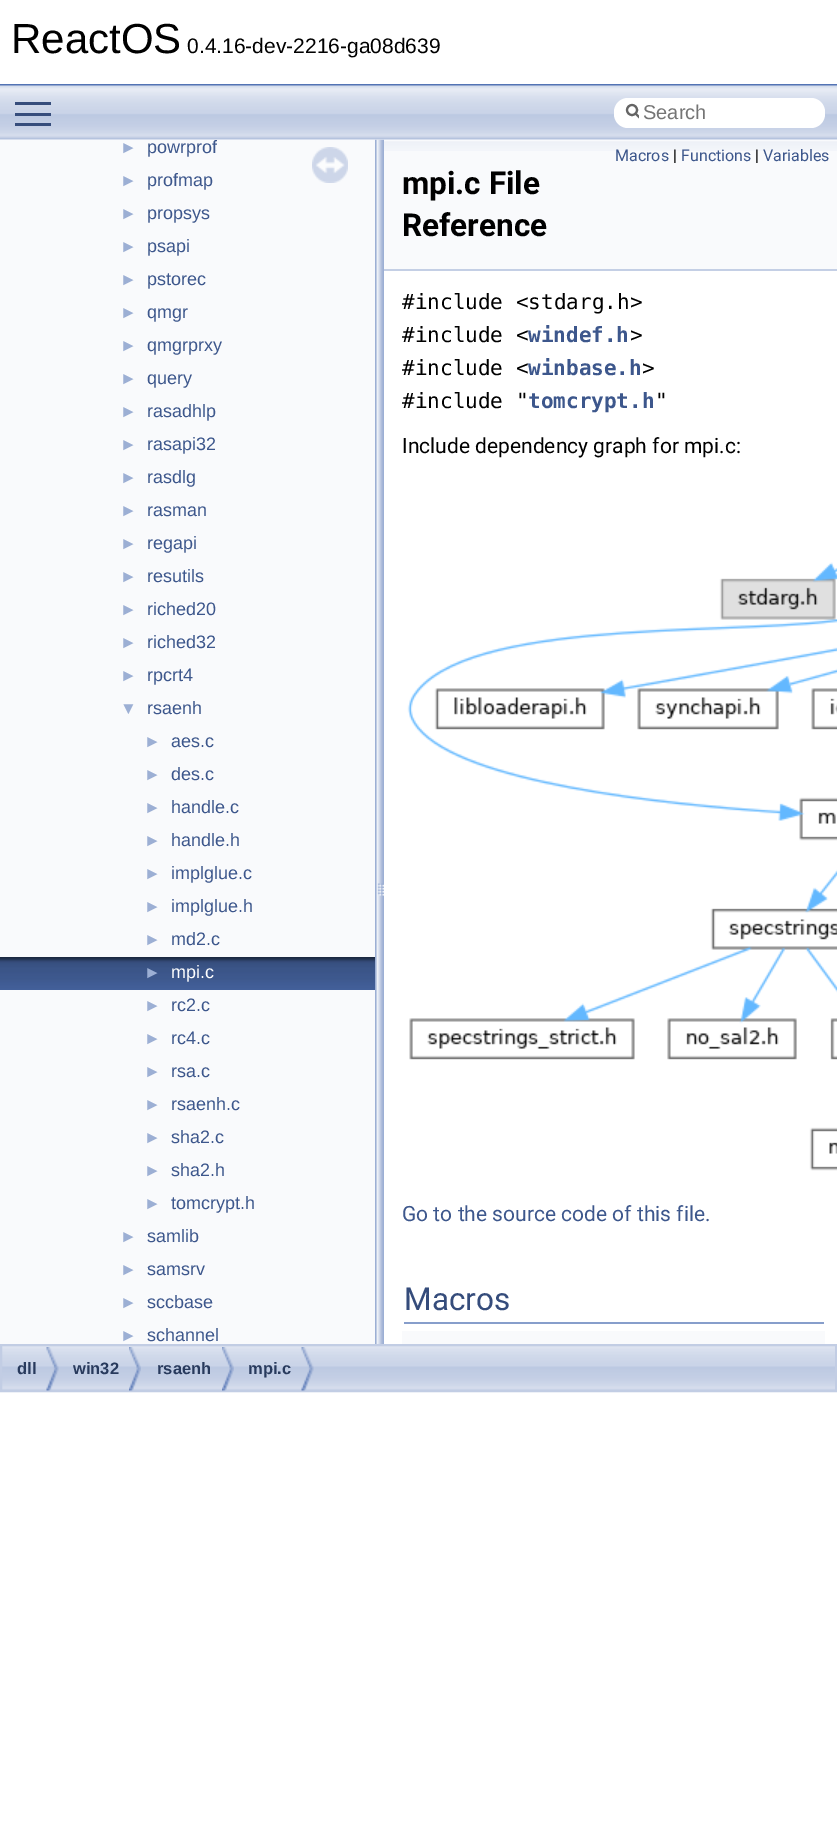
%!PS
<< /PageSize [837 1824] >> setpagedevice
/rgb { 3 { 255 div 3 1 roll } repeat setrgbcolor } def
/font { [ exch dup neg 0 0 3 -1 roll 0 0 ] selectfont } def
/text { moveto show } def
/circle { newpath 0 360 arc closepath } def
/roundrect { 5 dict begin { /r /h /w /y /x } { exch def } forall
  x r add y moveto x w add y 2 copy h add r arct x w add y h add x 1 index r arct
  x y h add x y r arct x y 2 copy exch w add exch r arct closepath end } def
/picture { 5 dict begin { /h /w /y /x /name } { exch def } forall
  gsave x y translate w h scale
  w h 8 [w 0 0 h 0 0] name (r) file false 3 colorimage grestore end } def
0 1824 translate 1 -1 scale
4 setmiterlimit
255 255 255 rgb
0 0 837 1824 rectfill
83 115 180 rgb
0 84 837 2 rectfill
(img_04.rgb) 375 139 9 1205 picture
(img_01.rgb) 0 85 837 55 picture
54 77 124 rgb
15 113 36 3 rectfill
15 102 36 3 rectfill
15 123 36 3 rectfill
255 255 255 rgb
614 98 211 30 14 roundrect fill
101 101 101 rgb
2.1 setlinewidth
632 110 5 circle stroke
gsave
624 98 15 28 rectclip
1 setlinecap
636 114 moveto 4.5 4.5 rlineto stroke
grestore
249 250 252 rgb
0 140 375 1204 rectfill
(img_02.rgb) 0 957 375 33 picture
(img_03.rgb) 312 147 36 36 picture
384 140 453 129 rectfill
(img_05.rgb) 384 141 453 10 picture
196 207 229 rgb
384 269 453 2 rectfill
(img_06.rgb) 407 562 430 609 picture
135 158 203 rgb
404 1322 420 2 rectfill
249 250 252 rgb
402 1331 423 13 rectfill
(img_07.rgb) 2 1346 833 44 picture
194 205 228 rgb
2 setlinewidth
1 1345 835 46 rectstroke
(img_08.rgb) 46 1347 13 44 picture
(img_09.rgb) 129 1347 12 44 picture
(img_09.rgb) 222 1347 12 44 picture
(img_08.rgb) 301 1347 13 44 picture
/LiberationSans-Regular 42 font
0 0 0 rgb
(ReactOS) 11 53 text
/LiberationSans-Regular 21 font
(0.4.16-dev-2216-ga08d639) 187 53 text
/LiberationSans-Regular 20 font
117 117 117 rgb
(Search) 643 119 text
/LiberationSans-Regular 17 font
156 175 212 rgb
(►) 120 153 text
/LiberationSans-Regular 18 font
61 87 140 rgb
(powrprof) 147 153 text
/LiberationSans-Regular 17 font
156 175 212 rgb
(►) 120 186 text
/LiberationSans-Regular 18 font
61 87 140 rgb
(profmap) 147 186 text
/LiberationSans-Regular 17 font
156 175 212 rgb
(►) 120 219 text
/LiberationSans-Regular 18 font
61 87 140 rgb
(propsys) 147 219 text
/LiberationSans-Regular 17 font
156 175 212 rgb
(►) 120 252 text
/LiberationSans-Regular 18 font
61 87 140 rgb
(psapi) 147 252 text
/LiberationSans-Regular 17 font
156 175 212 rgb
(►) 120 285 text
/LiberationSans-Regular 18 font
61 87 140 rgb
(pstorec) 147 285 text
/LiberationSans-Regular 17 font
156 175 212 rgb
(►) 120 318 text
/LiberationSans-Regular 18 font
61 87 140 rgb
(qmgr) 147 318 text
/LiberationSans-Regular 17 font
156 175 212 rgb
(►) 120 351 text
/LiberationSans-Regular 18 font
61 87 140 rgb
(qmgrprxy) 147 351 text
/LiberationSans-Regular 17 font
156 175 212 rgb
(►) 120 384 text
/LiberationSans-Regular 18 font
61 87 140 rgb
(query) 147 384 text
/LiberationSans-Regular 17 font
156 175 212 rgb
(►) 120 417 text
/LiberationSans-Regular 18 font
61 87 140 rgb
(rasadhlp) 147 417 text
/LiberationSans-Regular 17 font
156 175 212 rgb
(►) 120 450 text
/LiberationSans-Regular 18 font
61 87 140 rgb
(rasapi32) 147 450 text
/LiberationSans-Regular 17 font
156 175 212 rgb
(►) 120 483 text
/LiberationSans-Regular 18 font
61 87 140 rgb
(rasdlg) 147 483 text
/LiberationSans-Regular 17 font
156 175 212 rgb
(►) 120 516 text
/LiberationSans-Regular 18 font
61 87 140 rgb
(rasman) 147 516 text
/LiberationSans-Regular 17 font
156 175 212 rgb
(►) 120 549 text
/LiberationSans-Regular 18 font
61 87 140 rgb
(regapi) 147 549 text
/LiberationSans-Regular 17 font
156 175 212 rgb
(►) 120 582 text
/LiberationSans-Regular 18 font
61 87 140 rgb
(resutils) 147 582 text
/LiberationSans-Regular 17 font
156 175 212 rgb
(►) 120 615 text
/LiberationSans-Regular 18 font
61 87 140 rgb
(riched20) 147 615 text
/LiberationSans-Regular 17 font
156 175 212 rgb
(►) 120 648 text
/LiberationSans-Regular 18 font
61 87 140 rgb
(riched32) 147 648 text
/LiberationSans-Regular 17 font
156 175 212 rgb
(►) 120 681 text
/LiberationSans-Regular 18 font
61 87 140 rgb
(rpcrt4) 147 681 text
/LiberationSans-Regular 17 font
156 175 212 rgb
(▼) 120 714 text
/LiberationSans-Regular 18 font
61 87 140 rgb
(rsaenh) 147 714 text
/LiberationSans-Regular 17 font
156 175 212 rgb
(►) 144 747 text
/LiberationSans-Regular 18 font
61 87 140 rgb
(aes.c) 171 747 text
/LiberationSans-Regular 17 font
156 175 212 rgb
(►) 144 780 text
/LiberationSans-Regular 18 font
61 87 140 rgb
(des.c) 171 780 text
/LiberationSans-Regular 17 font
156 175 212 rgb
(►) 144 813 text
/LiberationSans-Regular 18 font
61 87 140 rgb
(handle.c) 171 813 text
/LiberationSans-Regular 17 font
156 175 212 rgb
(►) 144 846 text
/LiberationSans-Regular 18 font
61 87 140 rgb
(handle.h) 171 846 text
/LiberationSans-Regular 17 font
156 175 212 rgb
(►) 144 879 text
/LiberationSans-Regular 18 font
61 87 140 rgb
(implglue.c) 171 879 text
/LiberationSans-Regular 17 font
156 175 212 rgb
(►) 144 912 text
/LiberationSans-Regular 18 font
61 87 140 rgb
(implglue.h) 171 912 text
/LiberationSans-Regular 17 font
156 175 212 rgb
(►) 144 945 text
/LiberationSans-Regular 18 font
61 87 140 rgb
(md2.c) 171 945 text
/LiberationSans-Regular 17 font
156 175 212 rgb
(►) 144 978 text
/LiberationSans-Regular 18 font
255 255 255 rgb
(mpi.c) 171 978 text
/LiberationSans-Regular 17 font
156 175 212 rgb
(►) 144 1011 text
/LiberationSans-Regular 18 font
61 87 140 rgb
(rc2.c) 171 1011 text
/LiberationSans-Regular 17 font
156 175 212 rgb
(►) 144 1044 text
/LiberationSans-Regular 18 font
61 87 140 rgb
(rc4.c) 171 1044 text
/LiberationSans-Regular 17 font
156 175 212 rgb
(►) 144 1077 text
/LiberationSans-Regular 18 font
61 87 140 rgb
(rsa.c) 171 1077 text
/LiberationSans-Regular 17 font
156 175 212 rgb
(►) 144 1110 text
/LiberationSans-Regular 18 font
61 87 140 rgb
(rsaenh.c) 171 1110 text
/LiberationSans-Regular 17 font
156 175 212 rgb
(►) 144 1143 text
/LiberationSans-Regular 18 font
61 87 140 rgb
(sha2.c) 171 1143 text
/LiberationSans-Regular 17 font
156 175 212 rgb
(►) 144 1176 text
/LiberationSans-Regular 18 font
61 87 140 rgb
(sha2.h) 171 1176 text
/LiberationSans-Regular 17 font
156 175 212 rgb
(►) 144 1209 text
/LiberationSans-Regular 18 font
61 87 140 rgb
(tomcrypt.h) 171 1209 text
/LiberationSans-Regular 17 font
156 175 212 rgb
(►) 120 1242 text
/LiberationSans-Regular 18 font
61 87 140 rgb
(samlib) 147 1242 text
/LiberationSans-Regular 17 font
156 175 212 rgb
(►) 120 1275 text
/LiberationSans-Regular 18 font
61 87 140 rgb
(samsrv) 147 1275 text
/LiberationSans-Regular 17 font
156 175 212 rgb
(►) 120 1308 text
/LiberationSans-Regular 18 font
61 87 140 rgb
(sccbase) 147 1308 text
/LiberationSans-Regular 17 font
156 175 212 rgb
(►) 120 1341 text
/LiberationSans-Regular 18 font
61 87 140 rgb
(schannel) 147 1341 text
/Roboto-Regular 16 font
(Macros) 615 161 text
0 0 0 rgb
(|) 673 161 text
61 87 140 rgb
(Functions) 681 161 text
0 0 0 rgb
(|) 755 161 text
61 87 140 rgb
(Variables) 763 161 text
/Roboto-Bold 31.5 font
0 0 0 rgb
(mpi.c File) 402 194 text
(Reference) 402 236 text
/DejaVuSansMono-Regular 21 font
(#include <stdarg.h>) 402 309 text
(#include <) 402 342 text
/DejaVuSansMono-Bold 21 font
61 87 140 rgb
(windef.h) 528 342 text
/DejaVuSansMono-Regular 21 font
0 0 0 rgb
(>) 630 342 text
(#include <) 402 375 text
/DejaVuSansMono-Bold 21 font
61 87 140 rgb
(winbase.h) 528 375 text
/DejaVuSansMono-Regular 21 font
0 0 0 rgb
(>) 642 375 text
(#include ") 402 408 text
/DejaVuSansMono-Bold 21 font
61 87 140 rgb
(tomcrypt.h) 528 408 text
/DejaVuSansMono-Regular 21 font
0 0 0 rgb
(") 655 408 text
/Roboto-Regular 21 font
(Include dependency graph for mpi.c:) 402 453 text
61 87 140 rgb
(Go to the source code of this file.) 402 1221 text
/Roboto-Regular 31.5 font
53 76 123 rgb
(Macros) 404 1310 text
/LiberationSans-Bold 16.5 font
40 58 93 rgb
(dll) 17 1374 text
(win32) 73 1374 text
(rsaenh) 157 1374 text
(mpi.c) 248 1374 text
showpage
